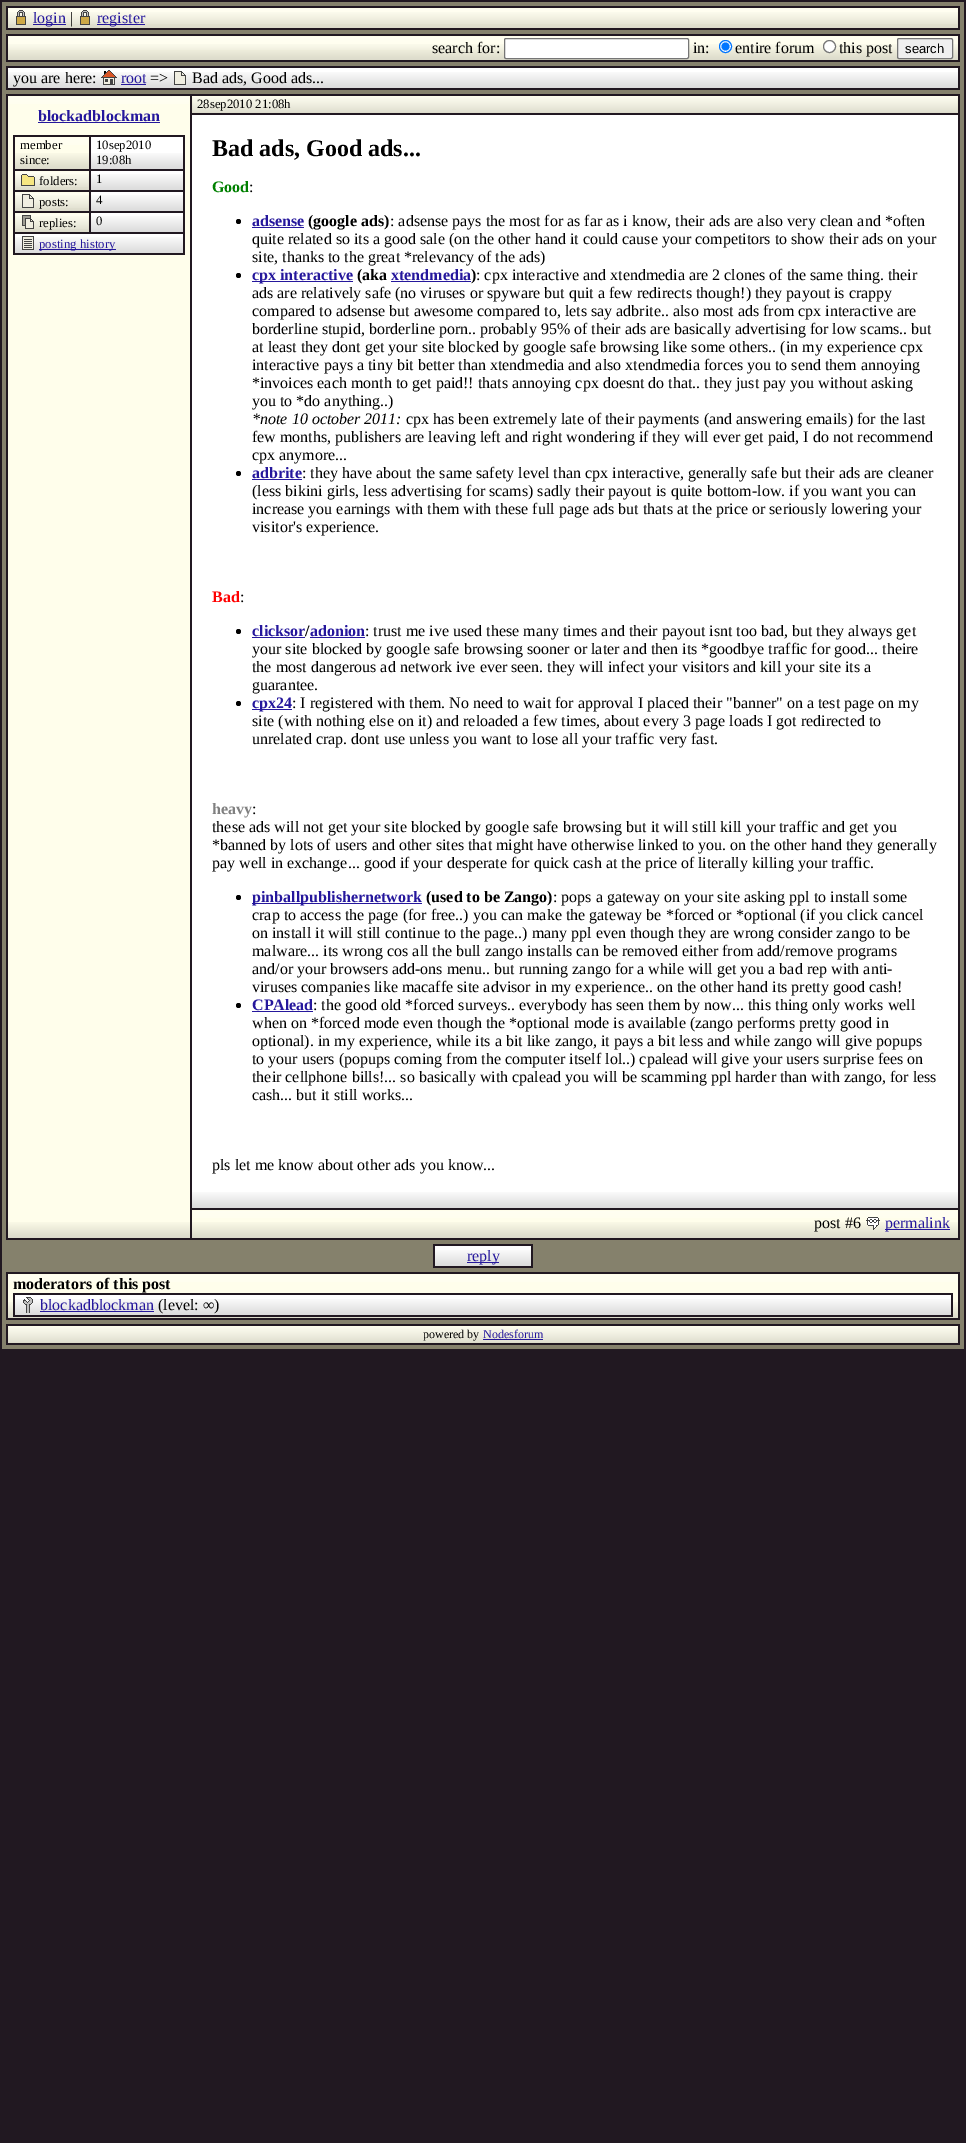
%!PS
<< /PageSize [966 2143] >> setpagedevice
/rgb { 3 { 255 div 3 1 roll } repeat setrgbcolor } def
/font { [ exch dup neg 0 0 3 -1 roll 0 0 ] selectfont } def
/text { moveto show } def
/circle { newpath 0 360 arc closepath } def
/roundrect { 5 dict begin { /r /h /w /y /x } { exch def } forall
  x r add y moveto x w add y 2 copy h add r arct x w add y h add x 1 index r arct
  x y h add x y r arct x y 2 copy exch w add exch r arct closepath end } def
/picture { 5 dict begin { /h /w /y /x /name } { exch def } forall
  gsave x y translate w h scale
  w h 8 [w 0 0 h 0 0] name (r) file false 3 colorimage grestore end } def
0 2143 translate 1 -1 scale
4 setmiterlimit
33 24 33 rgb
0 0 966 2143 rectfill
133 129 108 rgb
2 2 962 1347 rectfill
33 24 33 rgb
6 6 954 24 rectfill
255 254 235 rgb
8 8 950 20 rectfill
(img_01.rgb) 8 12 950 16 picture
(img_02.rgb) 9 9 948 15 picture
(img_03.rgb) 16 10 10 15 picture
37 23 156 rgb
33 24 33 1 rectfill
(img_03.rgb) 80 10 10 15 picture
97 24 48 1 rectfill
33 24 33 rgb
6 34 954 28 rectfill
255 254 235 rgb
8 36 950 24 rectfill
(img_01.rgb) 8 44 950 16 picture
(img_04.rgb) 9 37 948 13 picture
255 255 255 rgb
504.5 38.5 184 20 1.5 roundrect gsave fill grestore
118 118 118 rgb
stroke
255 255 255 rgb
725.5 46.5 6 circle gsave fill grestore
0 117 255 rgb
stroke
725.5 46.5 4 circle fill
255 255 255 rgb
829.5 46.5 6 circle gsave fill grestore
118 118 118 rgb
stroke
239 239 239 rgb
897.5 38.5 55 20 1.5 roundrect gsave fill grestore
118 118 118 rgb
stroke
33 24 33 rgb
6 66 954 24 rectfill
255 255 255 rgb
8 68 950 20 rectfill
(img_05.rgb) 8 72 950 16 picture
(img_06.rgb) 101 70 16 15 picture
37 23 156 rgb
121 84 25 1 rectfill
(img_07.rgb) 174 71 12 14 picture
33 24 33 rgb
6 94 954 1146 rectfill
255 254 235 rgb
192 96 766 17 rectfill
(img_08.rgb) 192 97 766 16 picture
(img_09.rgb) 193 97 764 15 picture
8 96 182 1142 rectfill
(img_10.rgb) 8 1222 182 16 picture
(img_11.rgb) 9 97 180 7 picture
37 23 156 rgb
38 122 122 1 rectfill
33 24 33 rgb
13 135 172 120 rectfill
255 254 235 rgb
15 137 74 32 rectfill
(img_12.rgb) 15 153 74 16 picture
(img_13.rgb) 16 138 72 7 picture
255 255 255 rgb
91 137 92 32 rectfill
(img_14.rgb) 91 153 92 16 picture
255 254 235 rgb
15 171 74 19 rectfill
(img_12.rgb) 15 174 74 16 picture
(img_15.rgb) 16 172 72 15 picture
(img_16.rgb) 21 174 14 12 picture
255 255 255 rgb
91 171 92 19 rectfill
(img_14.rgb) 91 174 92 16 picture
255 254 235 rgb
15 192 74 19 rectfill
(img_12.rgb) 15 195 74 16 picture
(img_15.rgb) 16 193 72 15 picture
(img_17.rgb) 22 194 12 14 picture
255 255 255 rgb
91 192 92 19 rectfill
(img_14.rgb) 91 195 92 16 picture
255 254 235 rgb
15 213 74 19 rectfill
(img_12.rgb) 15 216 74 16 picture
(img_15.rgb) 16 214 72 15 picture
(img_18.rgb) 22 215 12 14 picture
255 255 255 rgb
91 213 92 19 rectfill
(img_14.rgb) 91 216 92 16 picture
15 234 168 19 rectfill
(img_19.rgb) 15 237 168 16 picture
(img_20.rgb) 22 236 12 14 picture
37 23 156 rgb
39 249 77 1 rectfill
255 255 255 rgb
192 115 766 1093 rectfill
(img_21.rgb) 192 1192 766 16 picture
0 0 0 rgb
238.5 221.5 2.5 circle fill
37 23 156 rgb
252 227 52 1 rectfill
0 0 0 rgb
238.5 275.5 2.5 circle fill
37 23 156 rgb
252 281 101 1 rectfill
391 281 80 1 rectfill
0 0 0 rgb
238.5 473.5 2.5 circle fill
37 23 156 rgb
252 479 50 1 rectfill
0 0 0 rgb
238.5 631.5 2.5 circle fill
37 23 156 rgb
252 637 53 1 rectfill
310 637 55 1 rectfill
0 0 0 rgb
238.5 703.5 2.5 circle fill
37 23 156 rgb
252 709 40 1 rectfill
0 0 0 rgb
238.5 897.5 2.5 circle fill
37 23 156 rgb
252 903 170 1 rectfill
0 0 0 rgb
238.5 1005.5 2.5 circle fill
37 23 156 rgb
252 1011 61 1 rectfill
255 254 235 rgb
192 1210 766 28 rectfill
(img_08.rgb) 192 1222 766 16 picture
(img_22.rgb) 193 1211 764 7 picture
(img_23.rgb) 866 1217 14 13 picture
37 23 156 rgb
885 1229 65 1 rectfill
33 24 33 rgb
433 1244 100 24 rectfill
255 255 255 rgb
435 1246 96 20 rectfill
(img_24.rgb) 435 1250 96 16 picture
37 23 156 rgb
467 1262 32 1 rectfill
33 24 33 rgb
6 1272 954 48 rectfill
255 254 235 rgb
8 1274 950 44 rectfill
(img_01.rgb) 8 1302 950 16 picture
(img_25.rgb) 9 1275 948 7 picture
33 24 33 rgb
13 1293 940 24 rectfill
255 255 255 rgb
15 1295 936 20 rectfill
(img_26.rgb) 15 1299 936 16 picture
(img_27.rgb) 23 1297 10 16 picture
37 23 156 rgb
40 1311 114 1 rectfill
33 24 33 rgb
6 1324 954 21 rectfill
255 254 235 rgb
8 1326 950 17 rectfill
(img_01.rgb) 8 1327 950 16 picture
(img_28.rgb) 9 1327 948 15 picture
37 23 156 rgb
483 1339 60 1 rectfill
/LiberationSerif-Regular 16 font
(login) 33 23 text
0 0 0 rgb
(|) 70 23 text
37 23 156 rgb
(register) 97 23 text
0 0 0 rgb
(search for:) 432 53 text
(in:) 693 53 text
(entire forum) 735 53 text
(this post) 839 53 text
/LiberationSans-Regular 13 font
(search) 905 53 text
/LiberationSerif-Regular 16 font
(you are here:) 13 83 text
37 23 156 rgb
(root) 121 83 text
0 0 0 rgb
(=>) 150 83 text
(Bad ads, Good ads...) 192 83 text
/LiberationSerif-Regular 12.75 font
(28sep2010 21:08h) 197 108 text
/LiberationSerif-Bold 16 font
37 23 156 rgb
(blockadblockman) 38 121 text
/LiberationSerif-Regular 12.75 font
0 0 0 rgb
(member) 20 149 text
(since:) 20 164 text
(10sep2010) 96 149 text
(19:08h) 96 164 text
(folders:) 39 185 text
(1) 96 183 text
(posts:) 39 206 text
(4) 96 204 text
(replies:) 39 227 text
(0) 96 225 text
37 23 156 rgb
(posting history) 39 248 text
/LiberationSerif-Bold 24 font
0 0 0 rgb
(Bad ads, Good ads...) 212 156 text
/LiberationSerif-Bold 16 font
0 128 0 rgb
(Good) 212 192 text
/LiberationSerif-Regular 16 font
0 0 0 rgb
(:) 249 192 text
/LiberationSerif-Bold 16 font
37 23 156 rgb
(adsense) 252 226 text
0 0 0 rgb
(\(google ads\)) 308 226 text
/LiberationSerif-Regular 16 font
(: adsense pays the most for as far as i know, their ads are also very clean and *often) 390 226 text
(quite related so its a good sale \(on the other hand it could cause your competitors to show their ads on your) 252 244 text
(site, thanks to the great *relevancy of the ads\)) 252 262 text
/LiberationSerif-Bold 16 font
37 23 156 rgb
(cpx interactive) 252 280 text
0 0 0 rgb
(\(aka) 357 280 text
37 23 156 rgb
(xtendmedia) 391 280 text
0 0 0 rgb
(\)) 471 280 text
/LiberationSerif-Regular 16 font
(: cpx interactive and xtendmedia are 2 clones of the same thing. their) 476 280 text
(ads are relatively safe \(no viruses or spyware but quit a few redirects though!\) they payout is crappy) 252 298 text
(compared to adsense but awesome compared to, lets say adbrite.. also most ads from cpx interactive are) 252 316 text
(borderline stupid, borderline porn.. probably 95% of their ads are basically advertising for low scams.. but) 252 334 text
(at least they dont get your site blocked by google safe browsing like some others.. \(in my experience cpx) 252 352 text
(interactive pays a tiny bit better than xtendmedia and also xtendmedia forces you to send them annoying) 252 370 text
(*invoices each month to get paid!! thats annoying cpx doesnt do that.. they just pay you without asking) 252 388 text
(you to *do anything..\)) 252 406 text
/LiberationSerif-Italic 16 font
(*note 10 october 2011:) 252 424 text
/LiberationSerif-Regular 16 font
(cpx has been extremely late of their payments \(and answering emails\) for the last) 406 424 text
(few months, publishers are leaving left and right wondering if they will ever get paid, I do not recommend) 252 442 text
(cpx anymore...) 252 460 text
/LiberationSerif-Bold 16 font
37 23 156 rgb
(adbrite) 252 478 text
/LiberationSerif-Regular 16 font
0 0 0 rgb
(: they have about the same safety level than cpx interactive, generally safe but their ads are cleaner) 302 478 text
(\(less bikini girls, less advertising for scams\) sadly their payout is quite bottom-low. if you want you can) 252 496 text
(increase you earnings with them with these full page ads but thats at the price or seriously lowering your) 252 514 text
(visitor's experience.) 252 532 text
/LiberationSerif-Bold 16 font
255 0 0 rgb
(Bad) 212 602 text
/LiberationSerif-Regular 16 font
0 0 0 rgb
(:) 240 602 text
/LiberationSerif-Bold 16 font
37 23 156 rgb
(clicksor) 252 636 text
0 0 0 rgb
(/) 305 636 text
37 23 156 rgb
(adonion) 310 636 text
/LiberationSerif-Regular 16 font
0 0 0 rgb
(: trust me ive used these many times and their payout isnt too bad, but they always get) 365 636 text
(your site blocked by google safe browsing sooner or later and then its *goodbye traffic for good... theire) 252 654 text
(the most dangerous ad network ive ever seen. they will infect your visitors and kill your site its a) 252 672 text
(guarantee.) 252 690 text
/LiberationSerif-Bold 16 font
37 23 156 rgb
(cpx24) 252 708 text
/LiberationSerif-Regular 16 font
0 0 0 rgb
(: I registered with them. No need to wait for approval I placed their "banner" on a test page on my) 292 708 text
(site \(with nothing else on it\) and reloaded a few times, about every 3 page loads I got redirected to) 252 726 text
(unrelated crap. dont use unless you want to lose all your traffic very fast.) 252 744 text
/LiberationSerif-Bold 16 font
128 128 128 rgb
(heavy) 212 814 text
/LiberationSerif-Regular 16 font
0 0 0 rgb
(:) 252 814 text
(these ads will not get your site blocked by google safe browsing but it will still kill your traffic and get you) 212 832 text
(*banned by lots of users and other sites that might have otherwise linked to you. on the other hand they generally) 212 850 text
(pay well in exchange... good if your desperate for quick cash at the price of literally killing your traffic.) 212 868 text
/LiberationSerif-Bold 16 font
37 23 156 rgb
(pinballpublishernetwork) 252 902 text
0 0 0 rgb
(\(used to be Zango\)) 426 902 text
/LiberationSerif-Regular 16 font
(: pops a gateway on your site asking ppl to install some) 553 902 text
(crap to access the page \(for free..\) you can make the gateway be *forced or *optional \(if you click cancel) 252 920 text
(on install it will still continue to the page..\) many ppl even though they are wrong consider zango to be) 252 938 text
(malware... its wrong cos all the bull zango installs can be removed either from add/remove programs) 252 956 text
(and/or your browsers add-ons menu.. but running zango for a while will get you a bad rep with anti-) 252 974 text
(viruses companies like macaffe site advisor in my experience.. on the other hand its pretty good cash!) 252 992 text
/LiberationSerif-Bold 16 font
37 23 156 rgb
(CPAlead) 252 1010 text
/LiberationSerif-Regular 16 font
0 0 0 rgb
(: the good old *forced surveys.. everybody has seen them by now... this thing only works well) 313 1010 text
(when on *forced mode even though the *optional mode is available \(zango performs pretty good in) 252 1028 text
(optional\). in my experience, while its a bit like zango, it pays a bit less and while zango will give popups) 252 1046 text
(to your users \(popups coming from the computer itself lol..\) cpalead will give your users surprise fees on) 252 1064 text
(their cellphone bills!... so basically with cpalead you will be scamming ppl harder than with zango, for less) 252 1082 text
(cash... but it still works...) 252 1100 text
(pls let me know about other ads you know...) 212 1170 text
(post #6) 814 1228 text
37 23 156 rgb
(permalink) 885 1228 text
(reply) 467 1261 text
/LiberationSerif-Bold 16 font
0 0 0 rgb
(moderators of this post) 13 1289 text
/LiberationSerif-Regular 16 font
37 23 156 rgb
(blockadblockman) 40 1310 text
0 0 0 rgb
(\(level: ∞\)) 158 1310 text
/LiberationSerif-Regular 12 font
(powered by) 423 1338 text
37 23 156 rgb
(Nodesforum) 483 1338 text
showpage
